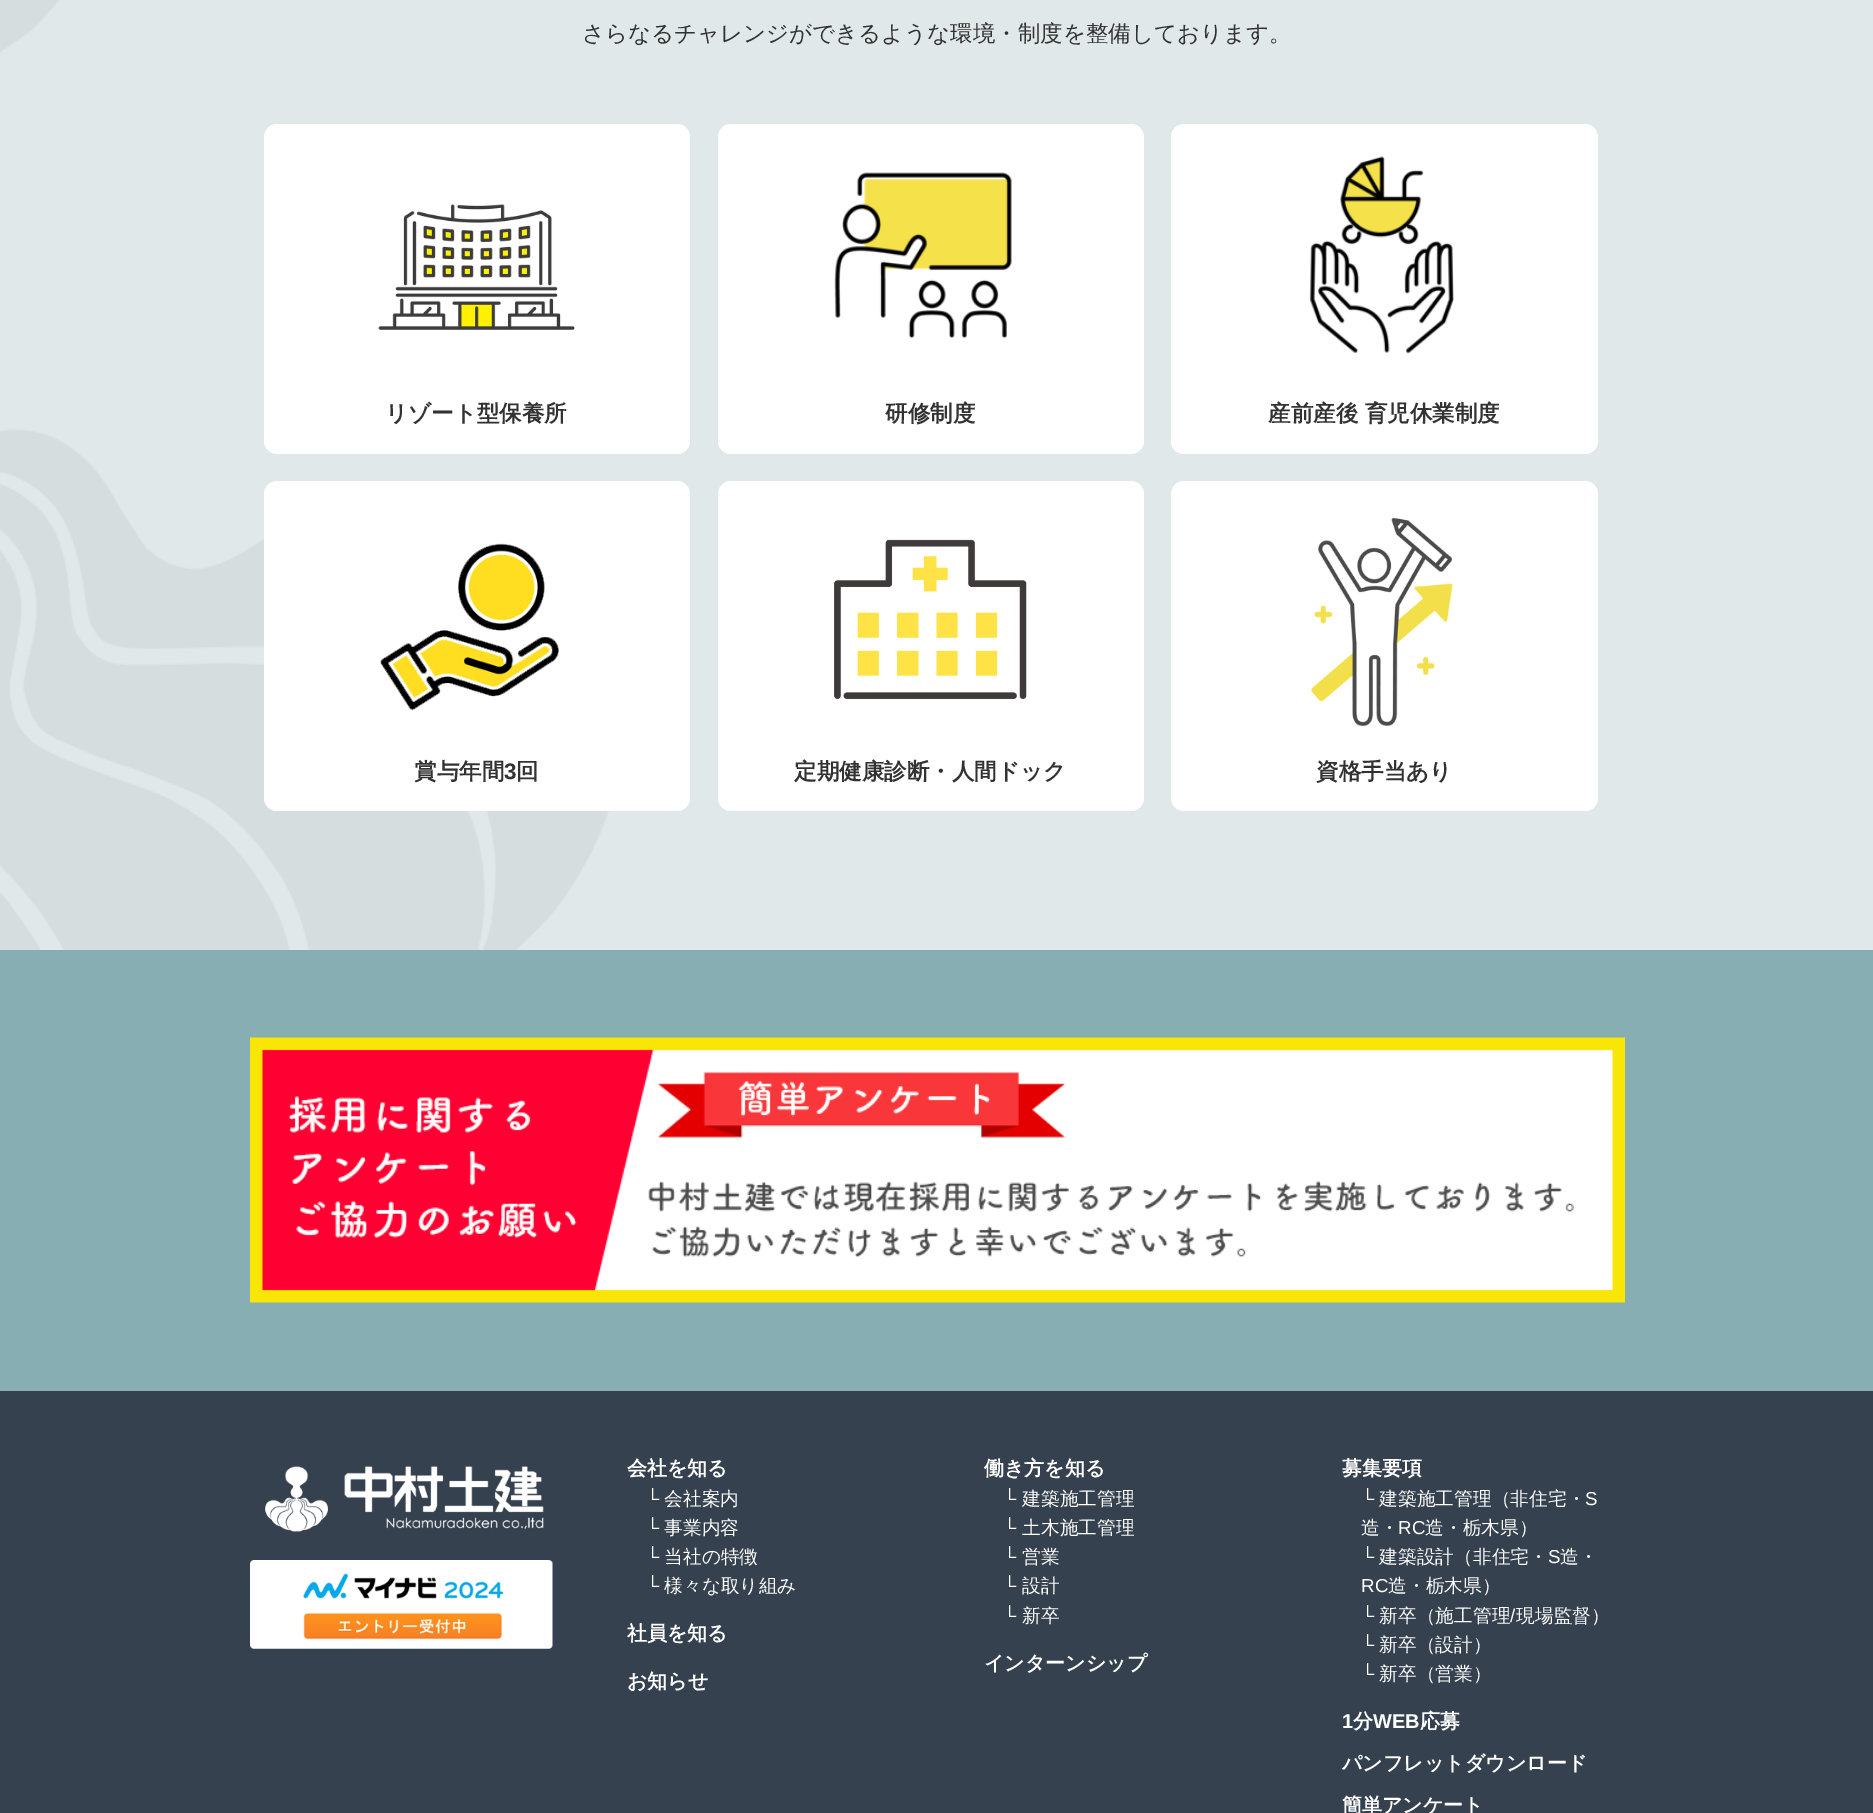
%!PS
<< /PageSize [1873 1813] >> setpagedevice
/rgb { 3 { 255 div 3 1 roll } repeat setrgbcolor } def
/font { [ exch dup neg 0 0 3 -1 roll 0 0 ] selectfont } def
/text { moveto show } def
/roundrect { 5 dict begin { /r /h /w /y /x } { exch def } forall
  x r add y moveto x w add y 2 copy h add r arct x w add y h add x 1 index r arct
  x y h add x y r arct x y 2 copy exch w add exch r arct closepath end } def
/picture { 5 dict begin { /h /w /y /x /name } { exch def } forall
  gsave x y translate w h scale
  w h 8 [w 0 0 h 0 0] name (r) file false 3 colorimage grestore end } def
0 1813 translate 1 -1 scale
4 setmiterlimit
225 232 233 rgb
0 0 1873 1813 rectfill
(img_01.rgb) 0 0 609 950 picture
255 255 255 rgb
264 124 426 330 13 roundrect fill
(img_02.rgb) 378 204 197 126 picture
718 124 426 330 13 roundrect fill
(img_03.rgb) 834 172 178 167 picture
1171 124 427 330 13 roundrect fill
(img_04.rgb) 1309 156 145 198 picture
264 481 426 330 13 roundrect fill
(img_05.rgb) 380 543 179 168 picture
718 481 426 330 13 roundrect fill
(img_06.rgb) 834 539 193 161 picture
1171 481 427 330 13 roundrect fill
(img_07.rgb) 1311 517 142 209 picture
134 174 179 rgb
0 950 1873 441 rectfill
(img_08.rgb) 250 1037 1375 266 picture
53 65 78 rgb
0 1391 1873 422 rectfill
(img_09.rgb) 265 1466 279 66 picture
(img_10.rgb) 250 1560 303 89 picture
/WenQuanYiZenHei-Medium 22.5 font
50 50 50 rgb
(さらなるチャレンジができるような環境・制度を整備しております。) 582 41 text
/WenQuanYiZenHei-Bold 22.5 font
(リゾート型保養所) 385 421 text
(研修制度) 885 421 text
(産前産後 育児休業制度) 1268 421 text
(賞与年間) 414 779 text
/LiberationSans-Bold 22.5 font
(3) 504 779 text
/WenQuanYiZenHei-Bold 22.5 font
(回) 516 779 text
(定期健康診断・人間ドック) 794 779 text
(資格手当あり) 1316 779 text
/WenQuanYiZenHei-Bold 20 font
255 255 255 rgb
(会社を知る) 627 1475 text
/LiberationSans-Regular 18.75 font
(└) 646 1505 text
/WenQuanYiZenHei-Medium 18.75 font
(会社案内) 664 1505 text
/LiberationSans-Regular 18.75 font
(└) 646 1534 text
/WenQuanYiZenHei-Medium 18.75 font
(事業内容) 664 1534 text
/LiberationSans-Regular 18.75 font
(└) 646 1563 text
/WenQuanYiZenHei-Medium 18.75 font
(当社の特徴) 664 1563 text
/LiberationSans-Regular 18.75 font
(└) 646 1592 text
/WenQuanYiZenHei-Medium 18.75 font
(様々な取り組み) 664 1592 text
/WenQuanYiZenHei-Bold 20 font
(社員を知る) 627 1640 text
(お知らせ) 627 1688 text
(働き方を知る) 984 1475 text
/LiberationSans-Regular 18.75 font
(└) 1003 1505 text
/WenQuanYiZenHei-Medium 18.75 font
(建築施工管理) 1022 1505 text
/LiberationSans-Regular 18.75 font
(└) 1003 1534 text
/WenQuanYiZenHei-Medium 18.75 font
(土木施工管理) 1022 1534 text
/LiberationSans-Regular 18.75 font
(└) 1003 1563 text
/WenQuanYiZenHei-Medium 18.75 font
(営業) 1022 1563 text
/LiberationSans-Regular 18.75 font
(└) 1003 1592 text
/WenQuanYiZenHei-Medium 18.75 font
(設計) 1022 1592 text
/LiberationSans-Regular 18.75 font
(└) 1003 1622 text
/WenQuanYiZenHei-Medium 18.75 font
(新卒) 1022 1622 text
/WenQuanYiZenHei-Bold 20 font
(インターンシップ) 984 1670 text
(募集要項) 1342 1475 text
/LiberationSans-Regular 18.75 font
(└) 1361 1505 text
/WenQuanYiZenHei-Medium 18.75 font
(建築施工管理（非住宅・) 1379 1505 text
/LiberationSans-Regular 18.75 font
(S) 1585 1505 text
/WenQuanYiZenHei-Medium 18.75 font
(造・) 1361 1534 text
/LiberationSans-Regular 18.75 font
(RC) 1398 1534 text
/WenQuanYiZenHei-Medium 18.75 font
(造・栃木県）) 1425 1534 text
/LiberationSans-Regular 18.75 font
(└) 1361 1563 text
/WenQuanYiZenHei-Medium 18.75 font
(建築設計（非住宅・) 1379 1563 text
/LiberationSans-Regular 18.75 font
(S) 1548 1563 text
/WenQuanYiZenHei-Medium 18.75 font
(造・) 1560 1563 text
/LiberationSans-Regular 18.75 font
(RC) 1361 1592 text
/WenQuanYiZenHei-Medium 18.75 font
(造・栃木県）) 1388 1592 text
/LiberationSans-Regular 18.75 font
(└) 1361 1622 text
/WenQuanYiZenHei-Medium 18.75 font
(新卒（施工管理) 1379 1622 text
/LiberationSans-Regular 18.75 font
(/) 1510 1622 text
/WenQuanYiZenHei-Medium 18.75 font
(現場監督）) 1516 1622 text
/LiberationSans-Regular 18.75 font
(└) 1361 1651 text
/WenQuanYiZenHei-Medium 18.75 font
(新卒（設計）) 1379 1651 text
/LiberationSans-Regular 18.75 font
(└) 1361 1680 text
/WenQuanYiZenHei-Medium 18.75 font
(新卒（営業）) 1379 1680 text
/LiberationSans-Bold 20 font
(1) 1342 1728 text
/WenQuanYiZenHei-Bold 20 font
(分) 1353 1728 text
/LiberationSans-Bold 20 font
(WEB) 1373 1728 text
/WenQuanYiZenHei-Bold 20 font
(応募) 1420 1728 text
(パンフレットダウンロード) 1342 1770 text
(簡単アンケート) 1342 1812 text
showpage
